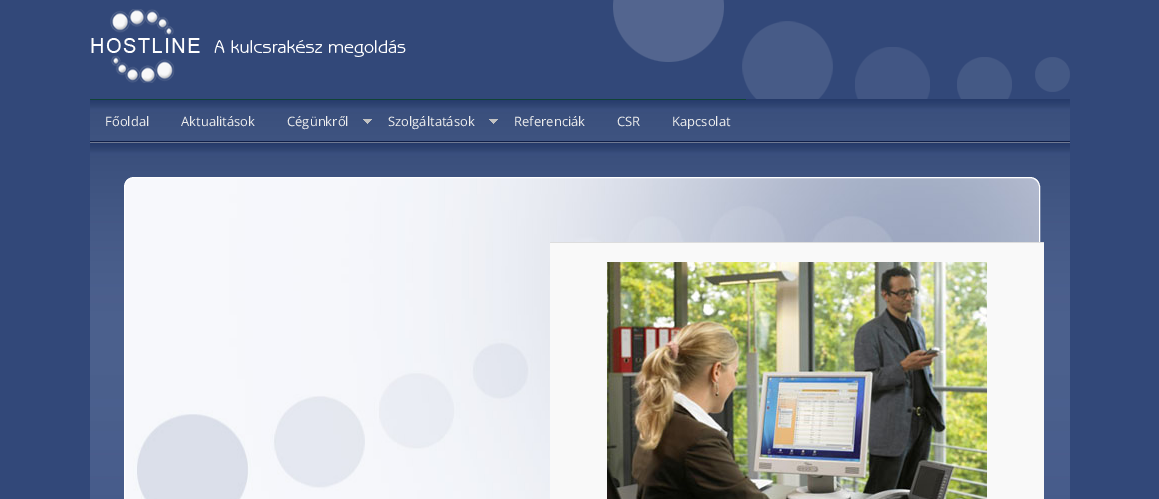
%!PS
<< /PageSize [1159 499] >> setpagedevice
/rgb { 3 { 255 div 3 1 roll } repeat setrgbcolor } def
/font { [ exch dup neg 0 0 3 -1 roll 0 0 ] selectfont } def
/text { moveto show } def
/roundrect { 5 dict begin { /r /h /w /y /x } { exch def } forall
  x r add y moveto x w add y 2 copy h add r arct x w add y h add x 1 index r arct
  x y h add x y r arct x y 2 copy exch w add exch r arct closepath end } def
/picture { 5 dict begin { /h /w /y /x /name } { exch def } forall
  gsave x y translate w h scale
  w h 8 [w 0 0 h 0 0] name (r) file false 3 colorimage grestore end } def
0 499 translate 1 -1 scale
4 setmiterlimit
50 72 121 rgb
0 0 1159 499 rectfill
(img_01.rgb) 613 0 457 99 picture
(img_02.rgb) 91 9 315 74 picture
(img_03.rgb) 90 141 980 2 picture
(img_04.rgb) 90 99 980 42 picture
16 67 54 rgb
90 99 656 1 rectfill
(img_05.rgb) 363 119 9 5 picture
(img_05.rgb) 489 119 9 5 picture
(img_06.rgb) 90 143 980 356 picture
(img_07.rgb) 125 178 914 321 picture
255 255 255 rgb
124.5 177.5 915 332 9.5 roundrect stroke
249 249 249 rgb
550 243 494 256 rectfill
221 221 221 rgb
550 242 494 1 rectfill
(img_08.rgb) 607 262 380 237 picture
/OpenSans-Regular 13 font
238 238 238 rgb
(Főoldal) 105 126 text
(Aktualitások) 181 126 text
(Cégünkről) 287 126 text
(Szolgáltatások) 388 126 text
(Referenciák) 514 126 text
(CSR) 617 126 text
(Kapcsolat) 672 126 text
showpage
